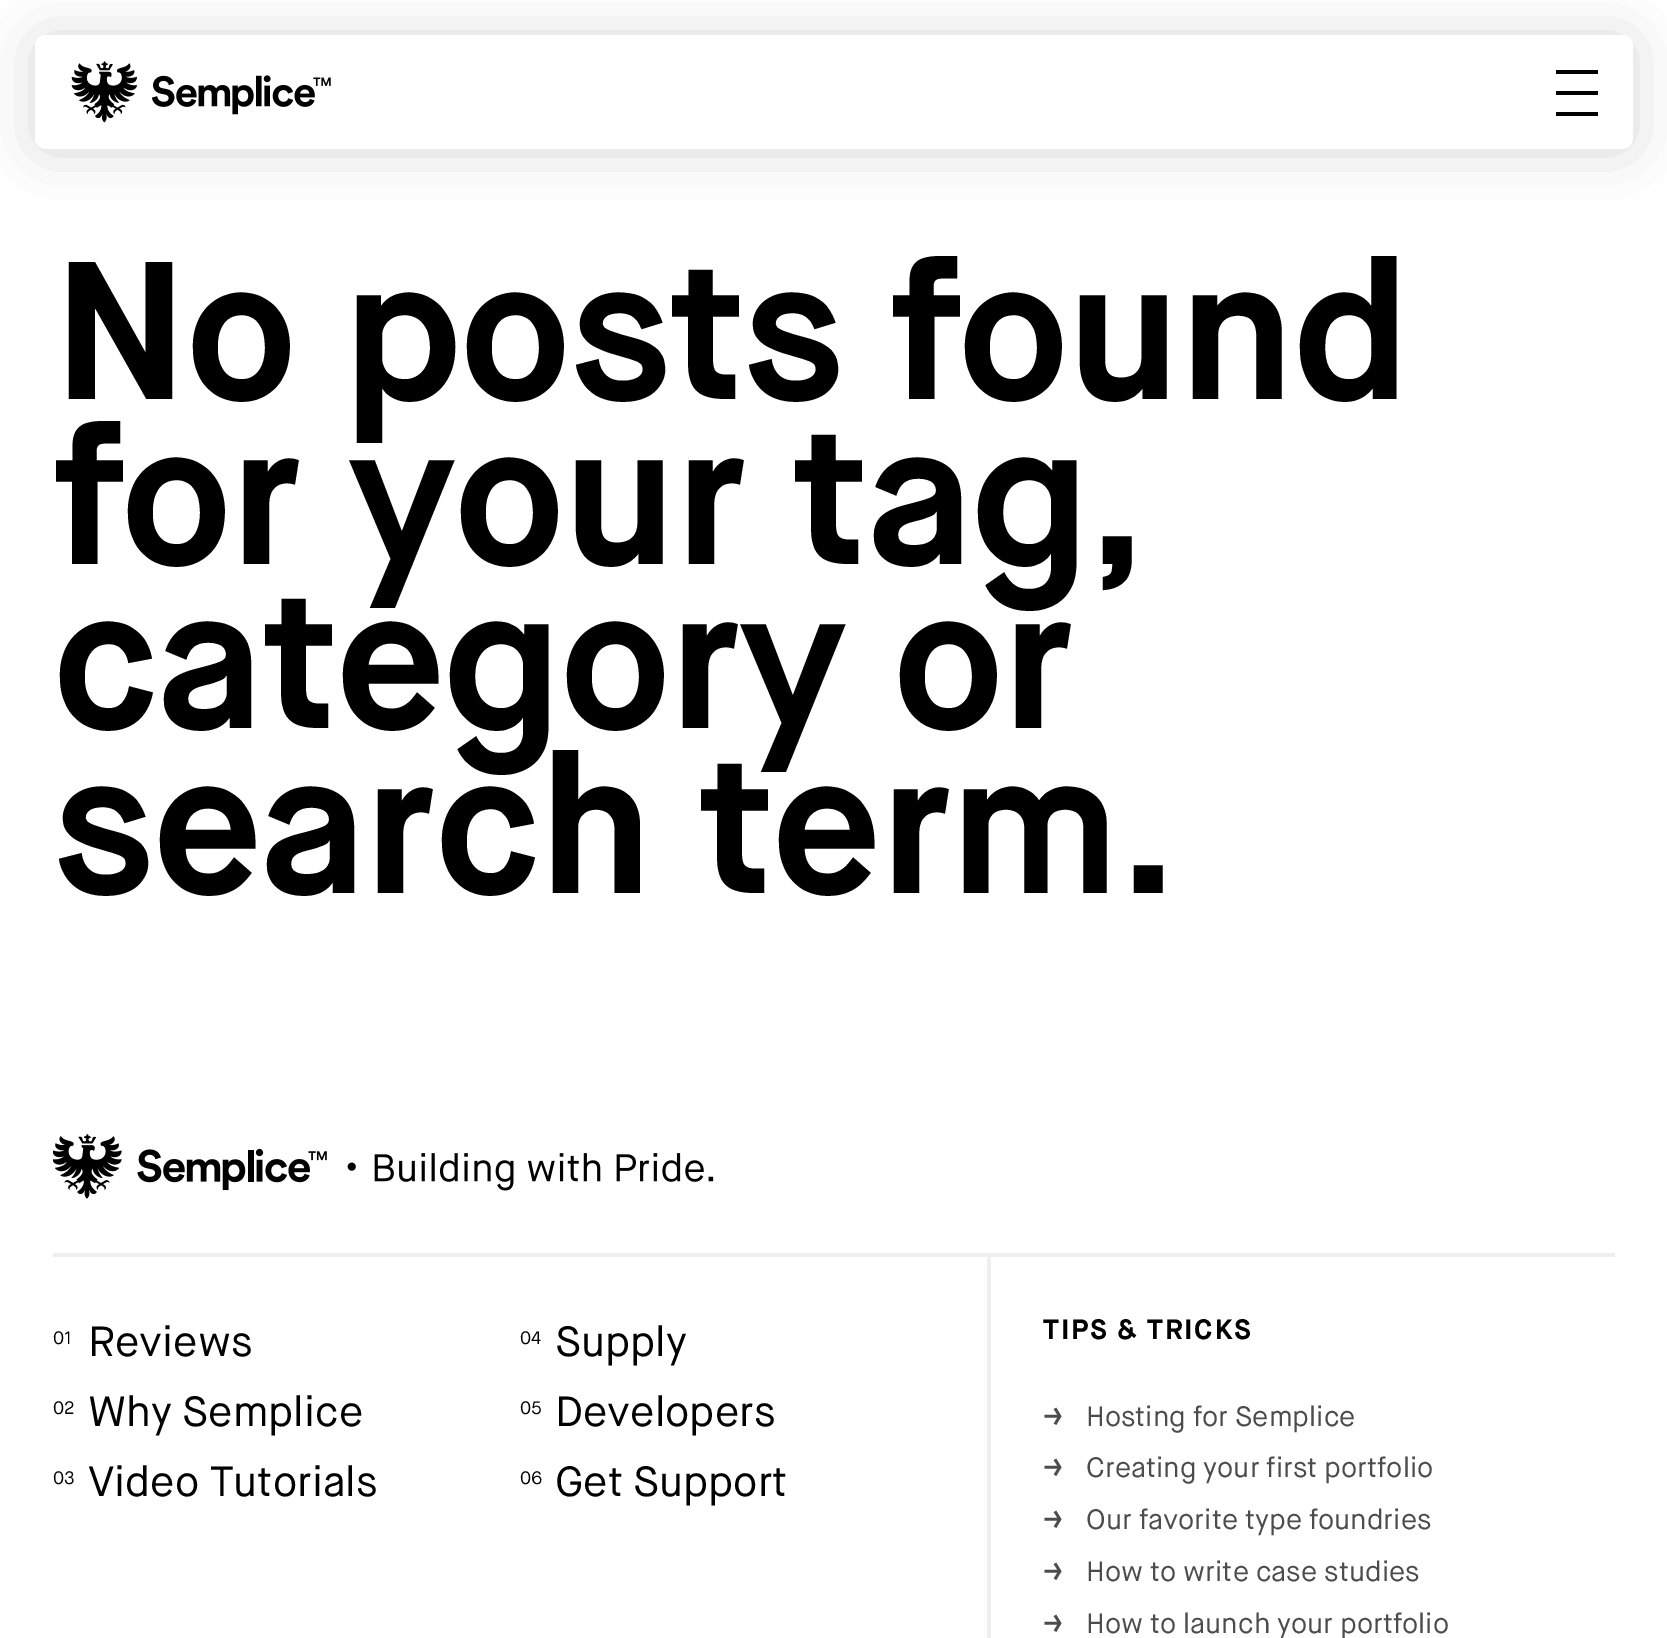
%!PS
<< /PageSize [1667 1638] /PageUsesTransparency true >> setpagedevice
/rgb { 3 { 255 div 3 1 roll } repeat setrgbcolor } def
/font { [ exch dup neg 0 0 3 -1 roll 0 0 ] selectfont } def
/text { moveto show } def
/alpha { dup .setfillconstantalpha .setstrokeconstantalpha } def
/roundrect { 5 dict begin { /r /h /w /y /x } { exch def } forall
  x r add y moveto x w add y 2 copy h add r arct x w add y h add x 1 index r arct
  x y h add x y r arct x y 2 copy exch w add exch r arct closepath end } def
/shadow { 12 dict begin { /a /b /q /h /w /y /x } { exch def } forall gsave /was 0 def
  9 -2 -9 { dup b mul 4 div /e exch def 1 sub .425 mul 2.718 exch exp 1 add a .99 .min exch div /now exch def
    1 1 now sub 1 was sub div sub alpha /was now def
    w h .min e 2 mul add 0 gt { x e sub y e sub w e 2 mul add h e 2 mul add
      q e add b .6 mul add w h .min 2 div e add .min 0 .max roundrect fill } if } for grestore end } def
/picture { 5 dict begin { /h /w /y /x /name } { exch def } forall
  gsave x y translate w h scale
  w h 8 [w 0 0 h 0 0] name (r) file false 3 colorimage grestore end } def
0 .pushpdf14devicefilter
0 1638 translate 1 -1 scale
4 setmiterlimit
255 255 255 rgb
0 0 1667 1638 rectfill
0 0 0 rgb
35 37 1598 114 11 28 0.15 shadow
255 255 255 rgb
35 35 1598 114 11 roundrect fill
(img_01.rgb) 71 61 260 62 picture
0 0 0 rgb
1556 91 42 4 rectfill
1556 70 42 4 rectfill
1556 112 42 4 rectfill
239 239 239 rgb
53 1253 1562 4 rectfill
(img_02.rgb) 53 1134 661 65 picture
987 1257 4 381 rectfill
/MaisonNeue-Bold 196 font
0 0 0 rgb
53 399 moveto -1.75 0 (No posts found) ashow
53 564 moveto -1.75 0 (for your tag,) ashow
53 728 moveto -1.75 0 (category or) ashow
53 893 moveto -1.75 0 (search term.) ashow
/MaisonNeue-Regular 18 font
(01) 53 1344 text
/MaisonNeue-Regular 42 font
(Reviews) 88 1356 text
/MaisonNeue-Regular 18 font
(02) 53 1414 text
/MaisonNeue-Regular 42 font
(Why Semplice) 88 1426 text
/MaisonNeue-Regular 18 font
(03) 53 1484 text
/MaisonNeue-Regular 42 font
(Video Tutorials) 88 1496 text
/MaisonNeue-Regular 18 font
(04) 520 1344 text
/MaisonNeue-Regular 42 font
(Supply) 555 1356 text
/MaisonNeue-Regular 18 font
(05) 520 1414 text
/MaisonNeue-Regular 42 font
(Developers) 555 1426 text
/MaisonNeue-Regular 18 font
(06) 520 1484 text
/MaisonNeue-Regular 42 font
(Get Support) 555 1496 text
/MaisonNeue-Bold 28 font
1043 1339 moveto 1.75 0 (TIPS & TRICKS) ashow
76 76 76 rgb
(→) 1043 1426 text
/MaisonNeue-Regular 28 font
(Hosting for Semplice) 1086 1426 text
/MaisonNeue-Bold 28 font
(→) 1043 1477 text
/MaisonNeue-Regular 28 font
(Creating your first portfolio) 1086 1477 text
/MaisonNeue-Bold 28 font
(→) 1043 1529 text
/MaisonNeue-Regular 28 font
(Our favorite type foundries) 1086 1529 text
/MaisonNeue-Bold 28 font
(→) 1043 1581 text
/MaisonNeue-Regular 28 font
(How to write case studies) 1086 1581 text
/MaisonNeue-Bold 28 font
(→) 1043 1633 text
/MaisonNeue-Regular 28 font
(How to launch your portfolio) 1086 1633 text
.poppdf14devicefilter showpage
